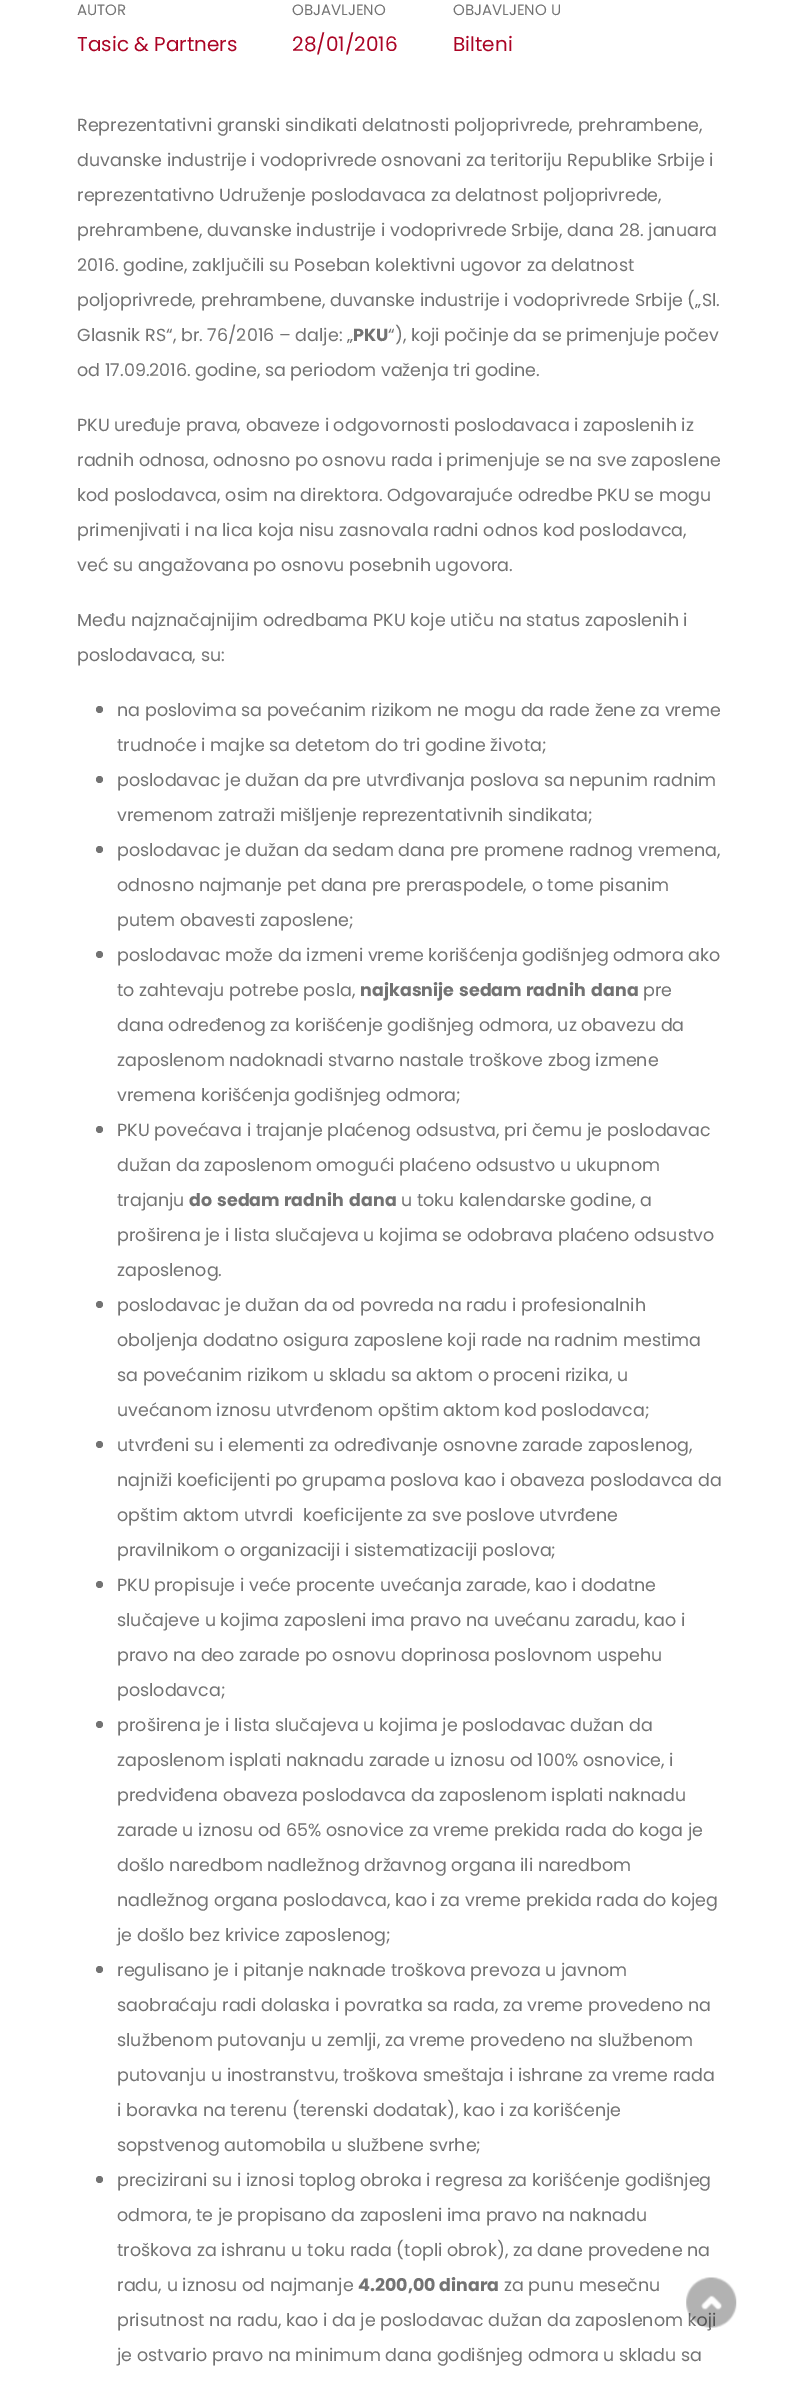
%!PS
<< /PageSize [798 2390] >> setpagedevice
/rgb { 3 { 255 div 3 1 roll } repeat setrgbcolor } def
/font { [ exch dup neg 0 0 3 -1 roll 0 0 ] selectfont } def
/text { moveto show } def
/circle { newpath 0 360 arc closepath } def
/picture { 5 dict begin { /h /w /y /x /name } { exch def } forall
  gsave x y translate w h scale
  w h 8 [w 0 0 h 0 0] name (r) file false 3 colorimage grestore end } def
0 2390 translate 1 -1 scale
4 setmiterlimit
255 255 255 rgb
0 0 798 2390 rectfill
115 115 115 rgb
99.5 709.5 3.5 circle fill
99.5 779.5 3.5 circle fill
99.5 849.5 3.5 circle fill
99.5 954.5 3.5 circle fill
99.5 1129.5 3.5 circle fill
99.5 1304.5 3.5 circle fill
99.5 1444.5 3.5 circle fill
99.5 1584.5 3.5 circle fill
99.5 1724.5 3.5 circle fill
99.5 1969.5 3.5 circle fill
99.5 2179.5 3.5 circle fill
/Poppins-Regular 15 font
(AUTOR) 77 15 text
/Poppins-Regular 20 font
171 4 37 rgb
(Tasic & Partners) 77 51 text
/Poppins-Regular 15 font
115 115 115 rgb
(OBJAVLJENO) 292 15 text
/Poppins-Regular 20 font
171 4 37 rgb
(28/01/2016) 292 51 text
/Poppins-Regular 15 font
115 115 115 rgb
(OBJAVLJENO U) 453 15 text
/Poppins-Regular 20 font
171 4 37 rgb
(Bilteni) 453 51 text
/Poppins-Regular 17.5 font
115 115 115 rgb
(Reprezentativni granski sindikati delatnosti poljoprivrede, prehrambene,) 77 131 text
(duvanske industrije i vodoprivrede osnovani za teritoriju Republike Srbije i) 77 166 text
(reprezentativno Udruženje poslodavaca za delatnost poljoprivrede,) 77 201 text
(prehrambene, duvanske industrije i vodoprivrede Srbije, dana 28. januara) 77 236 text
(2016. godine, zaključili su Poseban kolektivni ugovor za delatnost) 77 271 text
(poljoprivrede, prehrambene, duvanske industrije i vodoprivrede Srbije \(„Sl.) 77 306 text
(Glasnik RS“, br. 76/2016 – dalje: „) 77 341 text
/Poppins-Bold 17.5 font
(PKU) 353 341 text
/Poppins-Regular 17.5 font
(“\), koji počinje da se primenjuje počev) 388 341 text
(od 17.09.2016. godine, sa periodom važenja tri godine.) 77 376 text
(PKU uređuje prava, obaveze i odgovornosti poslodavaca i zaposlenih iz) 77 431 text
(radnih odnosa, odnosno po osnovu rada i primenjuje se na sve zaposlene) 77 466 text
(kod poslodavca, osim na direktora. Odgovarajuće odredbe PKU se mogu) 77 501 text
(primenjivati i na lica koja nisu zasnovala radni odnos kod poslodavca,) 77 536 text
(već su angažovana po osnovu posebnih ugovora.) 77 571 text
(Među najznačajnijim odredbama PKU koje utiču na status zaposlenih i) 77 626 text
(poslodavaca, su:) 77 661 text
(na poslovima sa povećanim rizikom ne mogu da rade žene za vreme) 117 716 text
(trudnoće i majke sa detetom do tri godine života;) 117 751 text
(poslodavac je dužan da pre utvrđivanja poslova sa nepunim radnim) 117 786 text
(vremenom zatraži mišljenje reprezentativnih sindikata;) 117 821 text
(poslodavac je dužan da sedam dana pre promene radnog vremena,) 117 856 text
(odnosno najmanje pet dana pre preraspodele, o tome pisanim) 117 891 text
(putem obavesti zaposlene;) 117 926 text
(poslodavac može da izmeni vreme korišćenja godišnjeg odmora ako) 117 961 text
(to zahtevaju potrebe posla,) 117 996 text
/Poppins-Bold 17.5 font
(najkasnije) 360 996 text
(sedam) 459 996 text
(radnih) 526 996 text
(dana) 591 996 text
/Poppins-Regular 17.5 font
(pre) 643 996 text
(dana određenog za korišćenje godišnjeg odmora, uz obavezu da) 117 1031 text
(zaposlenom nadoknadi stvarno nastale troškove zbog izmene) 117 1066 text
(vremena korišćenja godišnjeg odmora;) 117 1101 text
(PKU povećava i trajanje plaćenog odsustva, pri čemu je poslodavac) 117 1136 text
(dužan da zaposlenom omogući plaćeno odsustvo u ukupnom) 117 1171 text
(trajanju) 117 1206 text
/Poppins-Bold 17.5 font
(do) 189 1206 text
(sedam) 217 1206 text
(radnih) 284 1206 text
(dana) 349 1206 text
/Poppins-Regular 17.5 font
(u toku kalendarske godine, a) 401 1206 text
(proširena je i lista slučajeva u kojima se odobrava plaćeno odsustvo) 117 1241 text
(zaposlenog.) 117 1276 text
(poslodavac je dužan da od povreda na radu i profesionalnih) 117 1311 text
(oboljenja dodatno osigura zaposlene koji rade na radnim mestima) 117 1346 text
(sa povećanim rizikom u skladu sa aktom o proceni rizika, u) 117 1381 text
(uvećanom iznosu utvrđenom opštim aktom kod poslodavca;) 117 1416 text
(utvrđeni su i elementi za određivanje osnovne zarade zaposlenog,) 117 1451 text
(najniži koeficijenti po grupama poslova kao i obaveza poslodavca da) 117 1486 text
(opštim aktom utvrdi  koeficijente za sve poslove utvrđene) 117 1521 text
(pravilnikom o organizaciji i sistematizaciji poslova;) 117 1556 text
(PKU propisuje i veće procente uvećanja zarade, kao i dodatne) 117 1591 text
(slučajeve u kojima zaposleni ima pravo na uvećanu zaradu, kao i) 117 1626 text
(pravo na deo zarade po osnovu doprinosa poslovnom uspehu) 117 1661 text
(poslodavca;) 117 1696 text
(proširena je i lista slučajeva u kojima je poslodavac dužan da) 117 1731 text
(zaposlenom isplati naknadu zarade u iznosu od 100% osnovice, i) 117 1766 text
(predviđena obaveza poslodavca da zaposlenom isplati naknadu) 117 1801 text
(zarade u iznosu od 65% osnovice za vreme prekida rada do koga je) 117 1836 text
(došlo naredbom nadležnog državnog organa ili naredbom) 117 1871 text
(nadležnog organa poslodavca, kao i za vreme prekida rada do kojeg) 117 1906 text
(je došlo bez krivice zaposlenog;) 117 1941 text
(regulisano je i pitanje naknade troškova prevoza u javnom) 117 1976 text
(saobraćaju radi dolaska i povratka sa rada, za vreme provedeno na) 117 2011 text
(službenom putovanju u zemlji, za vreme provedeno na službenom) 117 2046 text
(putovanju u inostranstvu, troškova smeštaja i ishrane za vreme rada) 117 2081 text
(i boravka na terenu \(terenski dodatak\), kao i za korišćenje) 117 2116 text
(sopstvenog automobila u službene svrhe;) 117 2151 text
(precizirani su i iznosi toplog obroka i regresa za korišćenje godišnjeg) 117 2186 text
(odmora, te je propisano da zaposleni ima pravo na naknadu) 117 2221 text
(troškova za ishranu u toku rada \(topli obrok\), za dane provedene na) 117 2256 text
(radu, u iznosu od najmanje) 117 2291 text
/Poppins-Bold 17.5 font
(4.200,00 dinara) 358 2291 text
/Poppins-Regular 17.5 font
(za punu mesečnu) 504 2291 text
(prisutnost na radu, kao i da je poslodavac dužan da zaposlenom koji) 117 2326 text
(je ostvario pravo na minimum dana godišnjeg odmora u skladu sa) 117 2361 text
(img_01.rgb) 686 2277 51 51 picture
showpage
